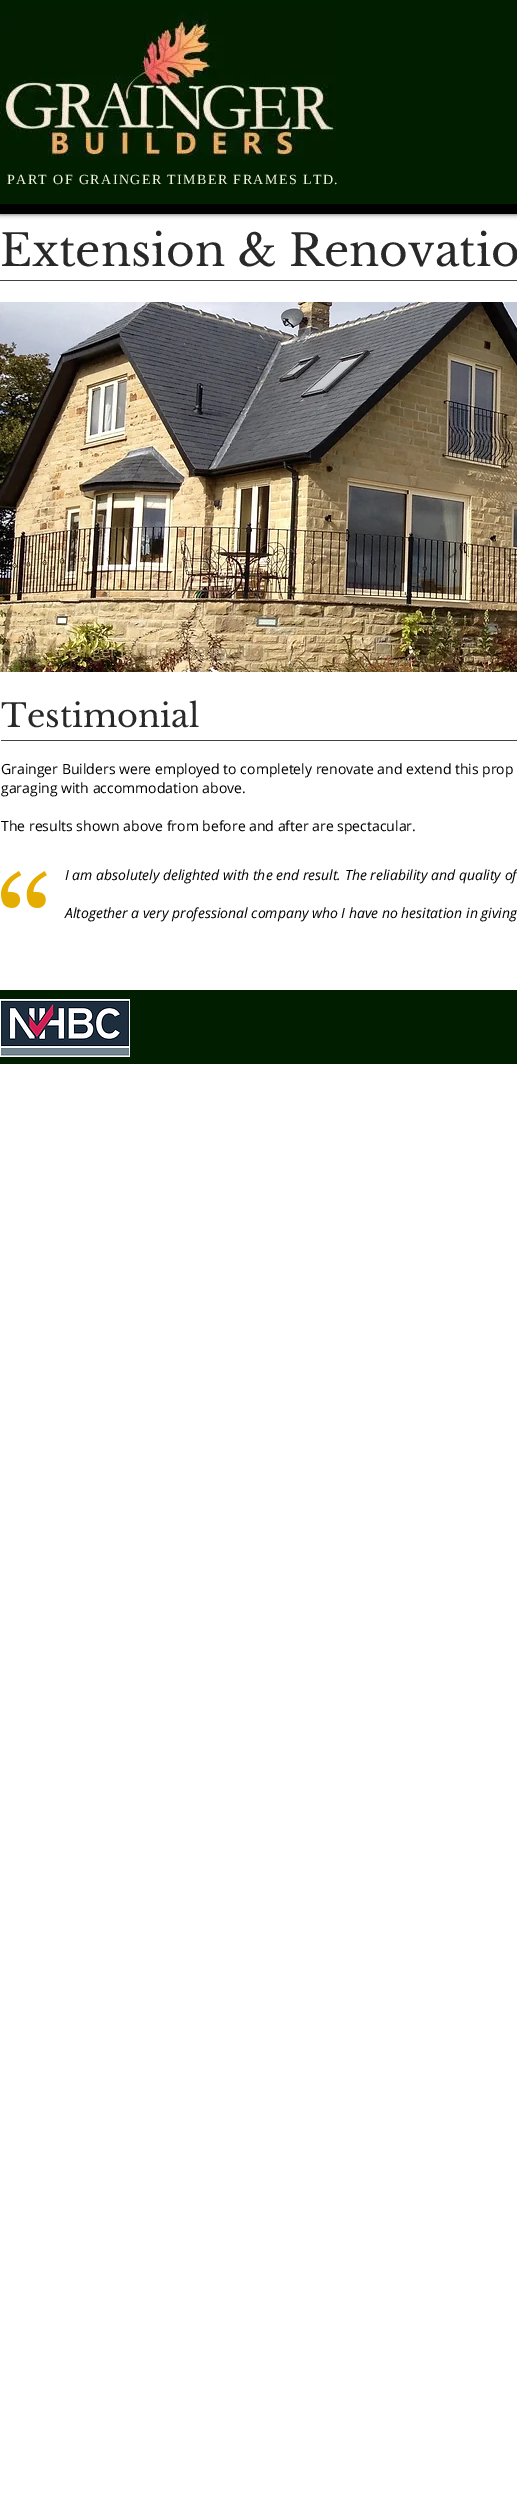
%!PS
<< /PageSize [517 2502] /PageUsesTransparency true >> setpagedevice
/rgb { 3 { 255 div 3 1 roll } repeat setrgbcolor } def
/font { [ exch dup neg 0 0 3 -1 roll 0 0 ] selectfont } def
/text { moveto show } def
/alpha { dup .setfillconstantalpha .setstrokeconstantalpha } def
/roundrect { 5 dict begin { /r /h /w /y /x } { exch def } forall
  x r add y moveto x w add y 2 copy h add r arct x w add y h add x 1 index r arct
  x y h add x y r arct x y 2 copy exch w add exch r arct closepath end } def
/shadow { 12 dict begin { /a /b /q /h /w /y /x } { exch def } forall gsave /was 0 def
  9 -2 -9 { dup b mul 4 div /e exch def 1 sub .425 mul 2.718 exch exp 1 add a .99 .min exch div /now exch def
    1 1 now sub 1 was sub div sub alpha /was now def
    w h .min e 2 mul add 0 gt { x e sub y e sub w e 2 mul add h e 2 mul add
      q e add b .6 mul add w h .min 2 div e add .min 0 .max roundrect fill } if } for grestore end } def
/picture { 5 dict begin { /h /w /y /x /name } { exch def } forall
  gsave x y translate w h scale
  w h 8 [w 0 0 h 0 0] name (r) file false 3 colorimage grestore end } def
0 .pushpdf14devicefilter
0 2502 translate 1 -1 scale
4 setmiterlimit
255 255 255 rgb
0 0 517 2502 rectfill
0 0 0 rgb
0 0 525 214 0 2.5 0.7 shadow
1 30 0 rgb
0 0 517 204 rectfill
0 0 0 rgb
0 204 517 10 rectfill
(img_01.rgb) 0 12 336 145 picture
66 66 66 rgb
0 280 517 1 rectfill
(img_02.rgb) 0 302 517 370 picture
1 740 516 1 rectfill
(img_03.rgb) 1 871 46 37 picture
1 30 0 rgb
0 990 517 74 rectfill
(img_04.rgb) 0 999 130 58 picture
/LiberationSerif-Regular 14 font
242 241 223 rgb
7 184 moveto 1.4 0 (PART OF GRAINGER TIMBER FRAMES LTD.) ashow
/LibreBaskerville-Regular 44 font
41 41 41 rgb
(Extension & Renovatio) 0 266 text
/OpenSans-Regular 16 font
163 141 99 rgb
(After Grainger Builders Renovation) 10 657 text
/LibreBaskerville-Regular 32 font
41 41 41 rgb
(Testimonial) 1 727 text
/OpenSans-Regular 14 font
0 0 0 rgb
(Grainger Builders were employed to completely renovate and extend this prop) 1 774 text
(garaging with accommodation above.) 1 793 text
(The results shown above from before and after are spectacular.) 1 831 text
/OpenSans-Italic 14 font
(I am absolutely delighted with the end result. The reliability and quality of) 65 880 text
(Altogether a very professional company who I have no hesitation in giving) 65 918 text
.poppdf14devicefilter showpage
